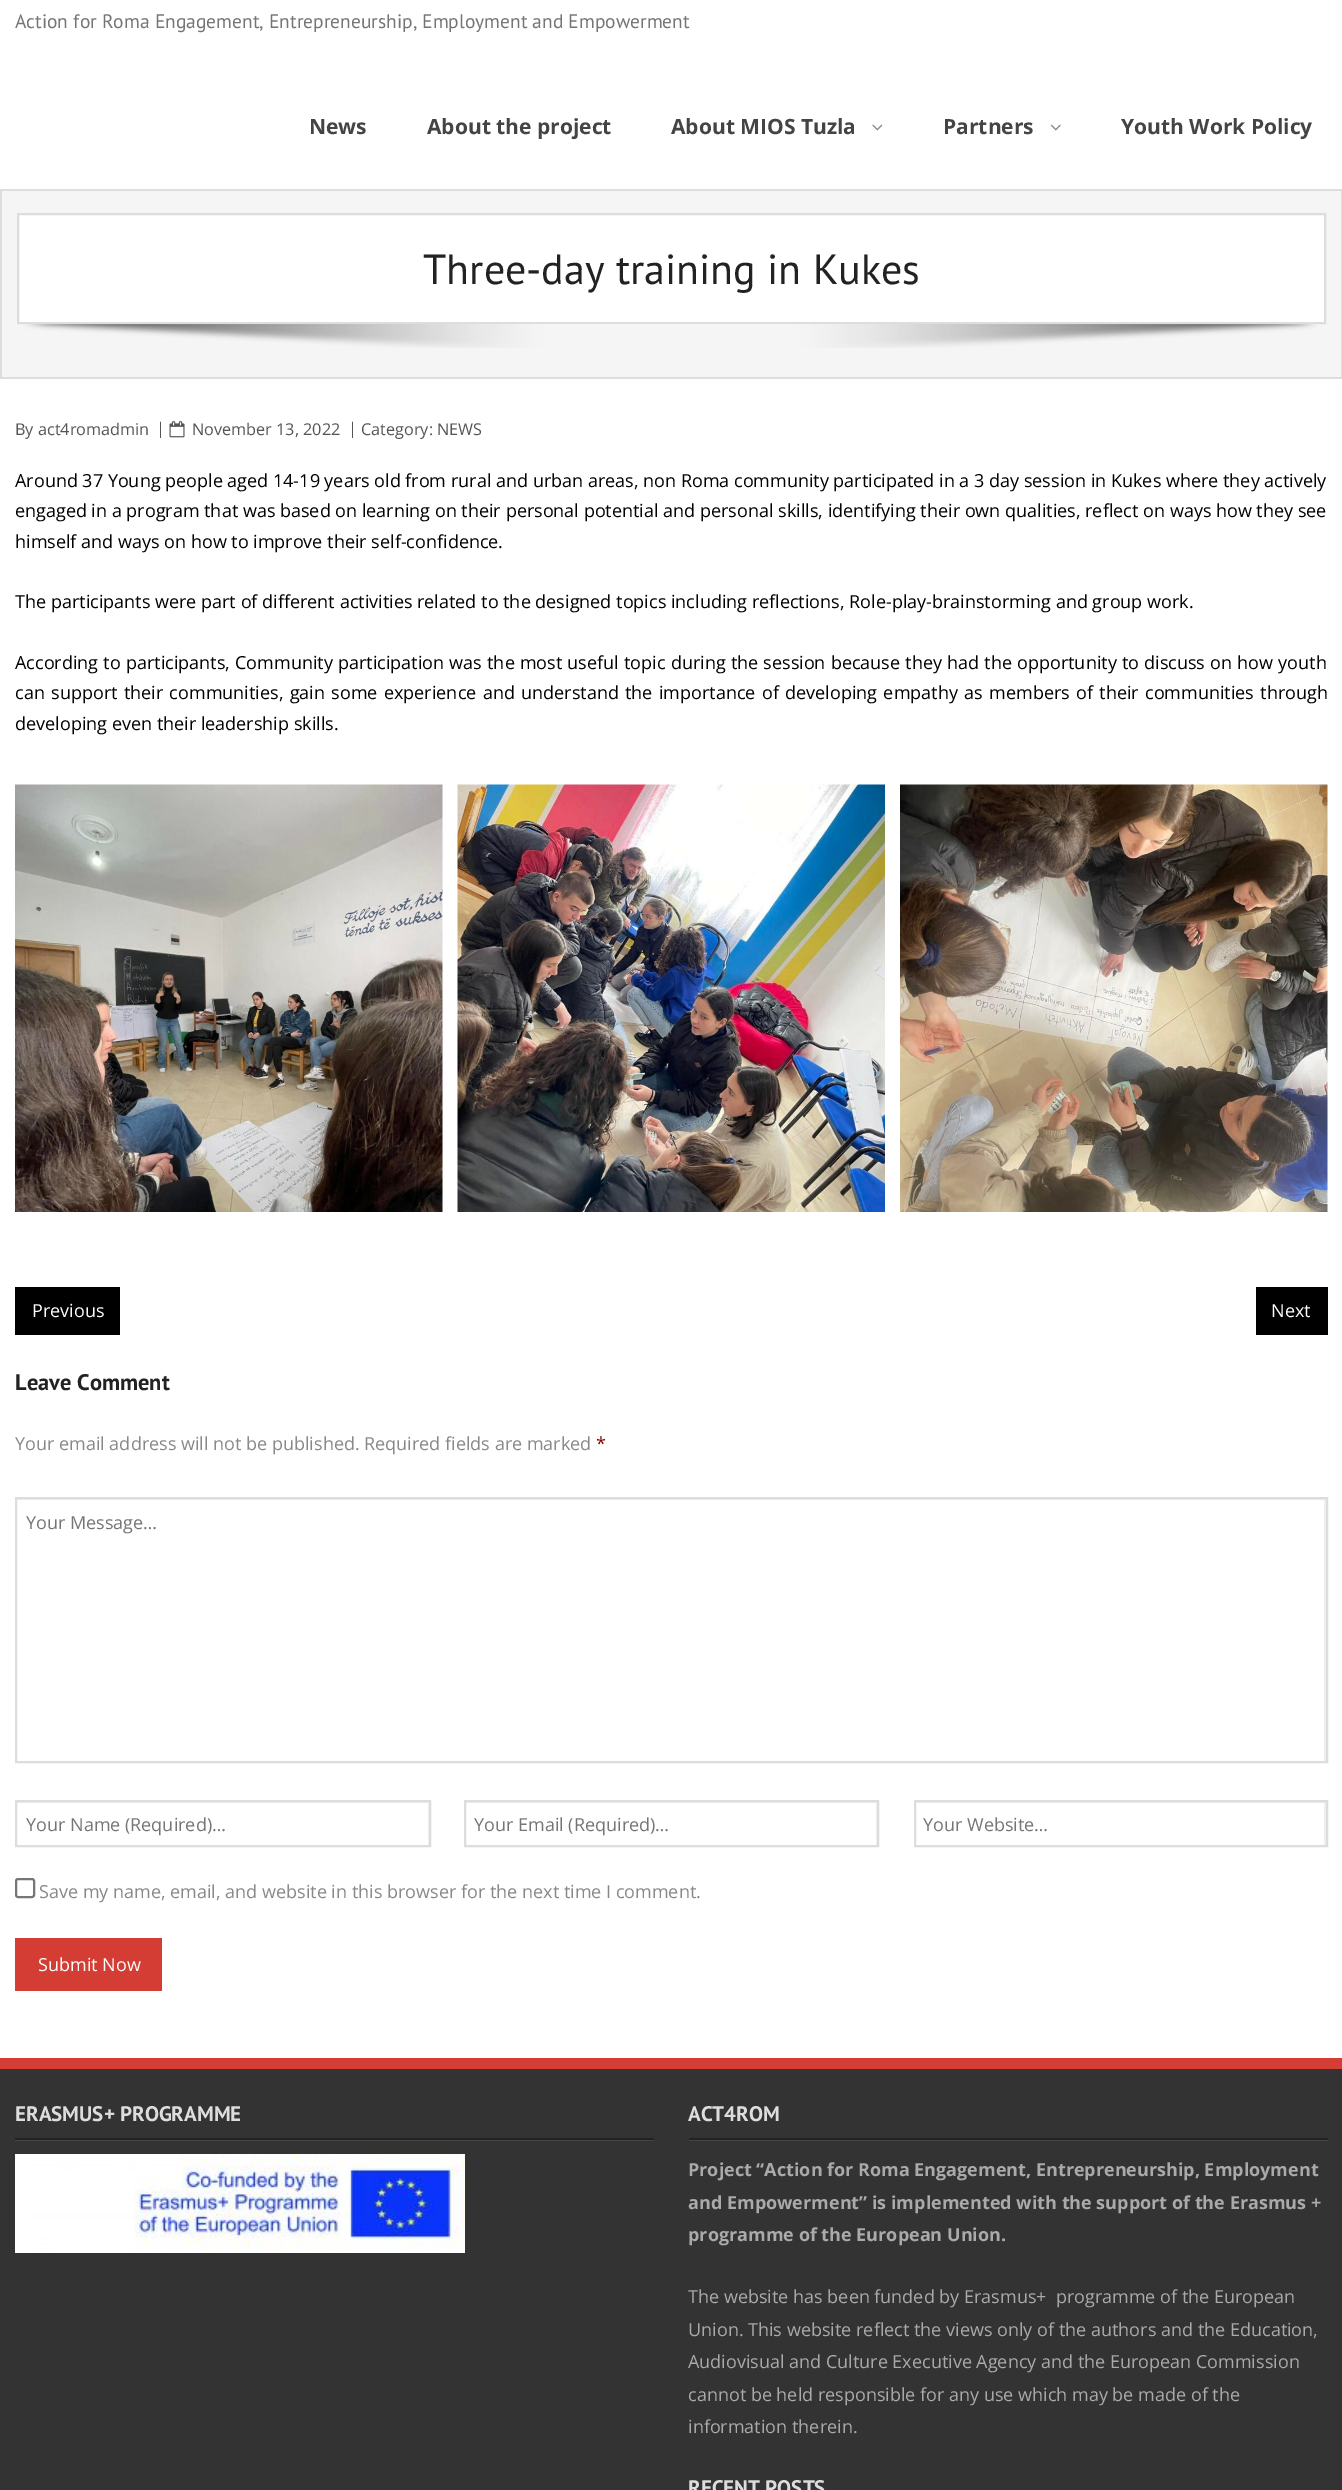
%!PS
<< /PageSize [1342 2490] >> setpagedevice
/rgb { 3 { 255 div 3 1 roll } repeat setrgbcolor } def
/font { [ exch dup neg 0 0 3 -1 roll 0 0 ] selectfont } def
/text { moveto show } def
/roundrect { 5 dict begin { /r /h /w /y /x } { exch def } forall
  x r add y moveto x w add y 2 copy h add r arct x w add y h add x 1 index r arct
  x y h add x y r arct x y 2 copy exch w add exch r arct closepath end } def
/picture { 5 dict begin { /h /w /y /x /name } { exch def } forall
  gsave x y translate w h scale
  w h 8 [w 0 0 h 0 0] name (r) file false 3 colorimage grestore end } def
0 2490 translate 1 -1 scale
4 setmiterlimit
255 255 255 rgb
0 0 1342 2490 rectfill
221 221 221 rgb
0 189 1342 2 rectfill
(img_01.rgb) 872 124 11 7 picture
(img_02.rgb) 1050 124 11 7 picture
245 245 245 rgb
2 191 1339 186 rectfill
221 221 221 rgb
1341 191 1 187 rectfill
0 377 1342 2 rectfill
0 191 2 187 rectfill
255 255 255 rgb
18 214 moveto 1307 0 rlineto 0 109 rlineto -1307 0 rlineto closepath gsave fill grestore
221 221 221 rgb
2 setlinewidth
stroke
(img_03.rgb) 25 324 1292 24 picture
(img_04.rgb) 169 421 16 17 picture
(img_05.rgb) 15 784 428 428 picture
(img_06.rgb) 457 784 428 428 picture
(img_07.rgb) 900 784 428 428 picture
0 0 0 rgb
15 1287 105 48 rectfill
1256 1287 72 48 rectfill
gsave
17 1499 1309 262 rectclip
238 238 238 rgb
-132 1350 moveto 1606 0 rlineto 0 560 rlineto -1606 0 rlineto closepath 15 1500 moveto 1309 0 rlineto 0 262 rlineto -1309 0 rlineto closepath eofill
grestore
221 221 221 rgb
16 1498 1311 264 rectstroke
gsave
17 1802 412 43 rectclip
238 238 238 rgb
-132 1653 moveto 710 0 rlineto 0 341 rlineto -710 0 rlineto closepath 15 1803 moveto 413 0 rlineto 0 43 rlineto -413 0 rlineto closepath eofill
grestore
16 1801 414 45 rectstroke
gsave
465 1802 413 43 rectclip
238 238 238 rgb
316 1653 moveto 710 0 rlineto 0 341 rlineto -710 0 rlineto closepath 464 1803 moveto 412 0 rlineto 0 43 rlineto -412 0 rlineto closepath eofill
grestore
465 1801 413 45 rectstroke
gsave
915 1802 411 43 rectclip
238 238 238 rgb
766 1653 moveto 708 0 rlineto 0 341 rlineto -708 0 rlineto closepath 914 1803 moveto 410 0 rlineto 0 43 rlineto -410 0 rlineto closepath eofill
grestore
915 1801 412 45 rectstroke
118 118 118 rgb
16 1879 18 18 2 roundrect stroke
211 61 51 rgb
15 1938 147 53 rectfill
51 51 51 rgb
0 2069 1342 421 rectfill
211 61 51 rgb
0 2058 1342 11 rectfill
68 68 68 rgb
15 2140 639 1 rectfill
34 34 34 rgb
15 2138 639 2 rectfill
(img_08.rgb) 15 2154 450 99 picture
68 68 68 rgb
689 2139 moveto 0 2 rlineto 639 0 rlineto 0 -41 rlineto 0 39 rlineto closepath fill
34 34 34 rgb
689 2138 639 2 rectfill
/PTSans-Regular 19.5 font
117 117 117 rgb
(Action for Roma Engagement, Entrepreneurship, Employment and Empowerment) 15 28 text
/OpenSans-Bold 21 font
68 68 68 rgb
(News) 309 134 text
(About the project) 427 134 text
(About MIOS Tuzla) 671 134 text
(Partners) 943 134 text
(Youth Work Policy) 1121 134 text
/PTSans-Regular 42 font
34 34 34 rgb
(Three-day training in Kukes) 423 284 text
/OpenSans-Regular 16.25 font
85 85 85 rgb
(By act4romadmin) 15 435 text
(|) 156 434 text
(November 13, 2022) 192 435 text
(|) 348 434 text
(Category: NEWS) 361 435 text
/OpenSans-Regular 18 font
0 0 0 rgb
(Around 37 Young people aged 14-19 years old from rural and urban areas, non Roma community participated in a 3 day session in Kukes where they actively) 15 487 text
(engaged in a program that was based on learning on their personal potential and personal skills, identifying their own qualities, reflect on ways how they see) 15 517 text
(himself and ways on how to improve their self-confidence.) 15 548 text
(The participants were part of different activities related to the designed topics including reflections, Role-play-brainstorming and group work.) 15 608 text
15 669 moveto 0.5 0 32 (According to participants, Community participation was the most useful topic during the session because they had the opportunity to discuss on how youth) widthshow
15 699 moveto 1.7 0 32 (can support their communities, gain some experience and understand the importance of developing empathy as members of their communities through) widthshow
(developing even their leadership skills.) 15 730 text
255 255 255 rgb
(Previous) 32 1317 text
(Next) 1271 1317 text
/PTSans-Bold 22.5 font
34 34 34 rgb
(Leave Comment) 15 1390 text
/OpenSans-Regular 18 font
136 136 136 rgb
(Your email address will not be published. Required fields are marked) 15 1450 text
136 0 0 rgb
(*) 596 1450 text
117 117 117 rgb
(Your Message…) 26 1529 text
(Your Name \(Required\)…) 26 1831 text
(Your Email \(Required\)…) 474 1831 text
(Your Website…) 923 1831 text
136 136 136 rgb
(Save my name, email, and website in this browser for the next time I comment.) 39 1898 text
255 255 255 rgb
(Submit Now) 38 1971 text
/PTSans-Bold 21 font
221 221 221 rgb
(ERASMUS+ PROGRAMME) 15 2121 text
(ACT4ROM) 688 2121 text
/OpenSans-Bold 18 font
170 170 170 rgb
(Project “Action for Roma Engagement, Entrepreneurship, Employment) 688 2176 text
(and Empowerment” is implemented with the support of the Erasmus +) 688 2209 text
(programme of the European Union.) 688 2241 text
/OpenSans-Regular 18 font
(The website has been funded by Erasmus+  programme of the European) 688 2303 text
(Union. This website reflect the views only of the authors and the Education,) 688 2336 text
(Audiovisual and Culture Executive Agency and the European Commission) 688 2368 text
(cannot be held responsible for any use which may be made of the) 688 2401 text
(information therein.) 688 2433 text
/PTSans-Bold 21 font
221 221 221 rgb
(RECENT POSTS) 688 2495 text
showpage
